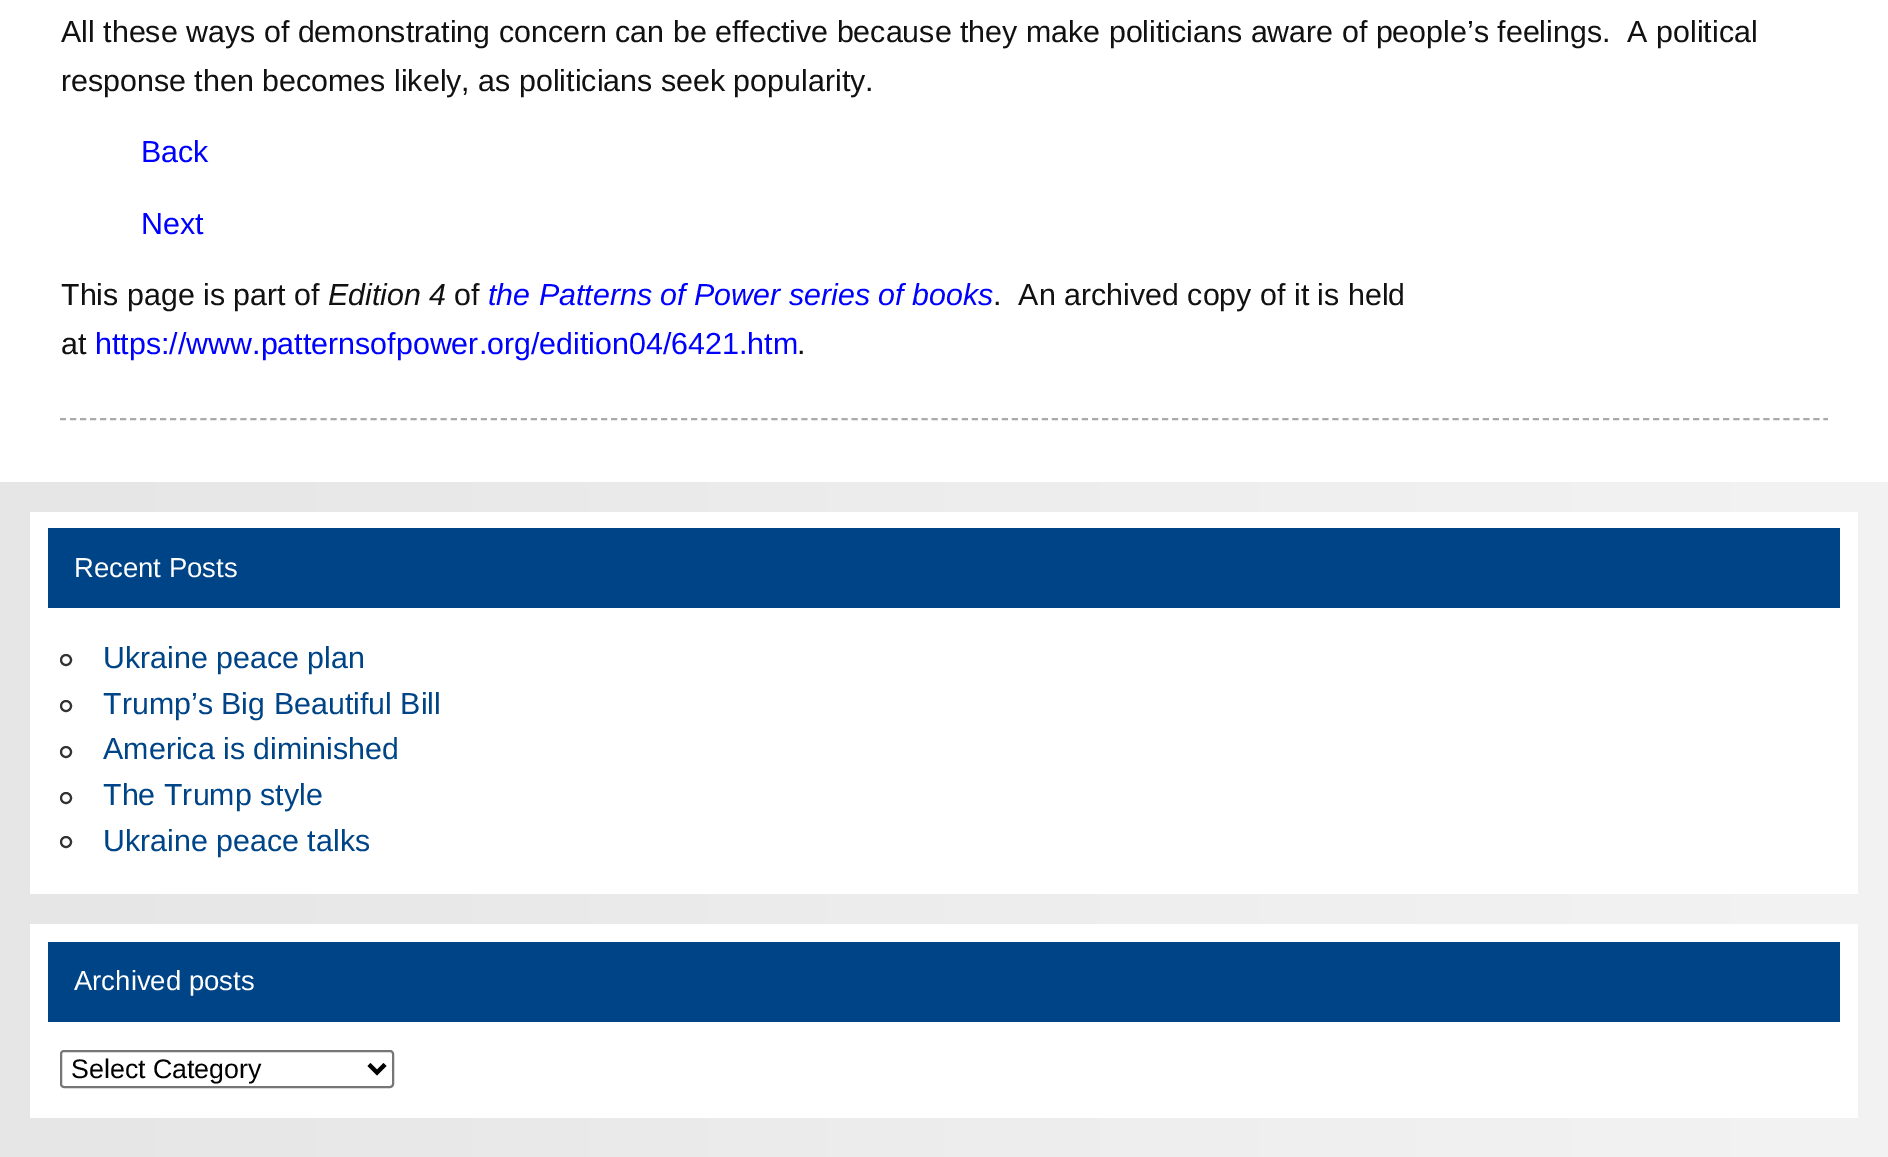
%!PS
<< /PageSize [1888 1157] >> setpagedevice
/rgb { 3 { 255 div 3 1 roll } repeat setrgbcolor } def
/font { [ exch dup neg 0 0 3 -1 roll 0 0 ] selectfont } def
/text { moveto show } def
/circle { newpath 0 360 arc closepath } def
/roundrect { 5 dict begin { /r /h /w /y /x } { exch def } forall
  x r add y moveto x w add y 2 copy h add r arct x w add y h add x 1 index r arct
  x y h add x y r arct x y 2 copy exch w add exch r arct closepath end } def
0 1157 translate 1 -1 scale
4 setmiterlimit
255 255 255 rgb
0 0 1888 1157 rectfill
170 170 170 rgb
2 setlinewidth
[6 4.02] 0 setdash
60 419 moveto 1768 0 rlineto stroke
gsave 0 482 moveto 1888 0 rlineto 0 675 rlineto -1888 0 rlineto closepath clip newpath
<< /ShadingType 2 /ColorSpace /DeviceRGB /Coords [0 830 1888 830] /Extend [true true] /Function << /FunctionType 2 /Domain [0 1] /C0 [0.902 0.902 0.902] /C1 [0.953 0.953 0.953] /N 1 >> >> shfill grestore
255 255 255 rgb
30 512 1828 382 rectfill
0 68 136 rgb
48 528 1792 80 rectfill
51 51 51 rgb
[] 0 setdash
66 660 5 circle stroke
66 706 5 circle stroke
66 752 5 circle stroke
66 798 5 circle stroke
66 842 5 circle stroke
255 255 255 rgb
30 924 1828 194 rectfill
0 68 136 rgb
48 942 1792 80 rectfill
118 118 118 rgb
61 1051 332 36 3 roundrect stroke
0 0 0 rgb
4 setlinewidth
369 1064.5 moveto 8 8 rlineto 8 -8 rlineto stroke
/LiberationSans-Regular 30.4 font
17 17 17 rgb
(All these ways of demonstrating concern can be effective because they make politicians aware of people’s feelings.  A political) 61 42 text
(response then becomes likely, as politicians seek popularity.) 61 91 text
0 0 255 rgb
(Back) 141 162 text
(Next) 141 234 text
17 17 17 rgb
(This page is part of) 61 305 text
/LiberationSans-Italic 30.4 font
(Edition 4) 328 305 text
/LiberationSans-Regular 30.4 font
(of) 454 305 text
/LiberationSans-Italic 30.4 font
0 0 255 rgb
(the Patterns of Power series of books) 488 305 text
/LiberationSans-Regular 30.4 font
17 17 17 rgb
(.  An archived copy of it is held) 993 305 text
(at) 61 354 text
0 0 255 rgb
(https://www.patternsofpower.org/edition04/6421.htm) 95 354 text
17 17 17 rgb
(.) 797 354 text
/LiberationSans-Regular 27.5 font
255 255 255 rgb
(Recent Posts) 74 577 text
/LiberationSans-Regular 30.4 font
0 68 136 rgb
(Ukraine peace plan) 103 668 text
(Trump’s Big Beautiful Bill) 103 714 text
(America is diminished) 103 759 text
(The Trump style) 103 805 text
(Ukraine peace talks) 103 851 text
/LiberationSans-Regular 27.5 font
255 255 255 rgb
(Archived posts) 74 990 text
/LiberationSans-Regular 26.75 font
0 0 0 rgb
(Select Category) 71 1078 text
showpage
